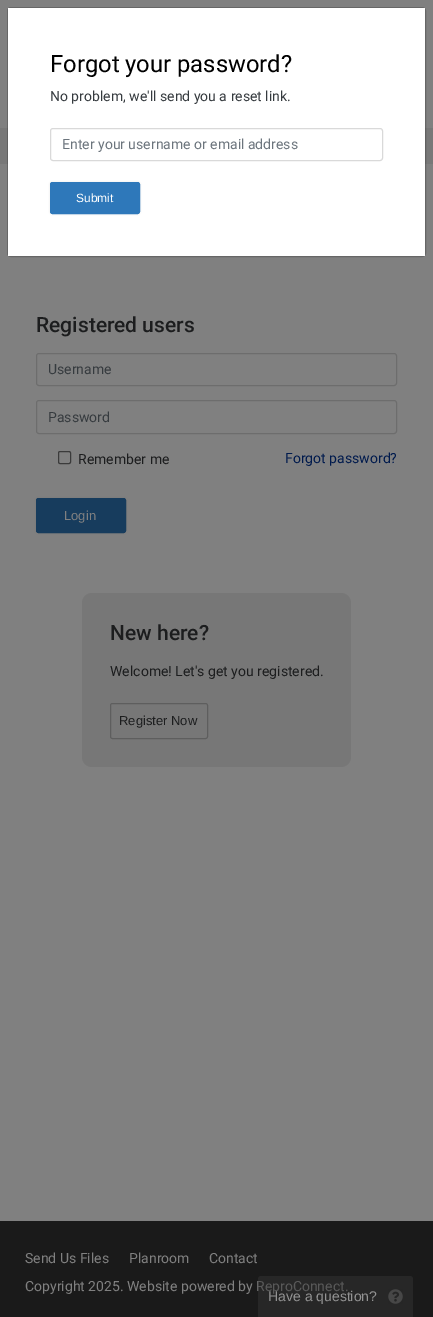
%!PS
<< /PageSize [433 1317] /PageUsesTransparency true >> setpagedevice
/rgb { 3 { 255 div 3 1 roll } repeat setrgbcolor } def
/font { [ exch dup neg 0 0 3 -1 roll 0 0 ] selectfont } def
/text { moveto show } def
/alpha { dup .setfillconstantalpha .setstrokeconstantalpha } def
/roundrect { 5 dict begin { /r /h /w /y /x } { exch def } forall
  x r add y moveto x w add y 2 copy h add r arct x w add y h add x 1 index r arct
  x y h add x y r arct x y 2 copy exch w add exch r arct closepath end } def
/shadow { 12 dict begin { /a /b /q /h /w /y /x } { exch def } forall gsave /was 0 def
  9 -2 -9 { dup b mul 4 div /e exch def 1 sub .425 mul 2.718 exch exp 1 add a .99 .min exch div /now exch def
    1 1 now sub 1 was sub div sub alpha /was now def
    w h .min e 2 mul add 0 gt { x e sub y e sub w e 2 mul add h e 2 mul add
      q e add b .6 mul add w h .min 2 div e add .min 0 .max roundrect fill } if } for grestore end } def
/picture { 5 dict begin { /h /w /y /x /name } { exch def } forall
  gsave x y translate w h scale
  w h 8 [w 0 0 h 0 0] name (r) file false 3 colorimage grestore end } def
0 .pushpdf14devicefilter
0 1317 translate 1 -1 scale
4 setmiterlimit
128 128 128 rgb
0 0 433 1317 rectfill
120 120 120 rgb
0 128 433 36 rectfill
0.2 alpha
0 0 0 rgb
7.5 7.5 418 249 3.5 roundrect stroke
1 alpha
255 255 255 rgb
8 8 417 248 rectfill
217 217 217 rgb
50.5 128.5 332 32 2.5 roundrect stroke
0 0 0 rgb
50 182 90 32 2.5 1 0.1 shadow
46 120 186 rgb
50.5 182.5 89 31 2 roundrect gsave fill grestore
stroke
109 109 109 rgb
36.5 353.5 360 32 2.5 roundrect stroke
36.5 400.5 360 33 2.5 roundrect stroke
59 59 59 rgb
58.5 451.5 12 12 1.5 roundrect stroke
0 0 0 rgb
36 498 90 35 2.5 1 0.1 shadow
23 60 93 rgb
36.5 498.5 89 34 2 roundrect gsave fill grestore
stroke
119 119 119 rgb
82 593 269 174 10 roundrect fill
94 94 94 rgb
110.5 703.5 97 35 2 roundrect stroke
26 26 26 rgb
0 1221 433 96 rectfill
/Roboto-Regular 23.75 font
0 0 0 rgb
(Forgot your password?) 50 72 text
/Roboto-Regular 14 font
54 59 63 rgb
(No problem, we'll send you a reset link.) 50 101 text
108 117 125 rgb
(Enter your username or email address) 62 149 text
/LiberationSans-Regular 12 font
255 255 255 rgb
(Submit) 76 202 text
/Roboto-Medium 21 font
28 29 30 rgb
(Registered users) 36 332 text
/Roboto-Regular 14 font
54 59 63 rgb
(Username) 48 374 text
(Password) 48 422 text
28 29 30 rgb
(Remember me) 78 464 text
0 26 77 rgb
(Forgot password?) 285 463 text
/LiberationSans-Regular 13 font
128 128 128 rgb
(Login) 64 520 text
/Roboto-Medium 21 font
28 29 30 rgb
(New here?) 110 640 text
/Roboto-Regular 14 font
(Welcome! Let's get you registered.) 110 676 text
/LiberationSans-Regular 13 font
(Register Now) 119 725 text
/Roboto-Regular 14 font
128 128 128 rgb
(Send Us Files) 25 1263 text
(Planroom) 129 1263 text
(Contact) 209 1263 text
(Copyright 2025. Website powered by ReproConnect.) 25 1291 text
0.5 alpha
51 51 51 rgb
261 1276 moveto 149 0 rlineto 1.5 0 3 1.5 3 3 rcurveto 0 38 rlineto -155 0 rlineto 0 -38 rlineto 0 -1.5 1.5 -3 3 -3 rcurveto closepath fill
/LiberationSans-Regular 14 font
1 alpha
147 147 147 rgb
(Have a question?) 268 1301 text
(img_01.rgb) 388 1289 15 15 picture
.poppdf14devicefilter showpage
